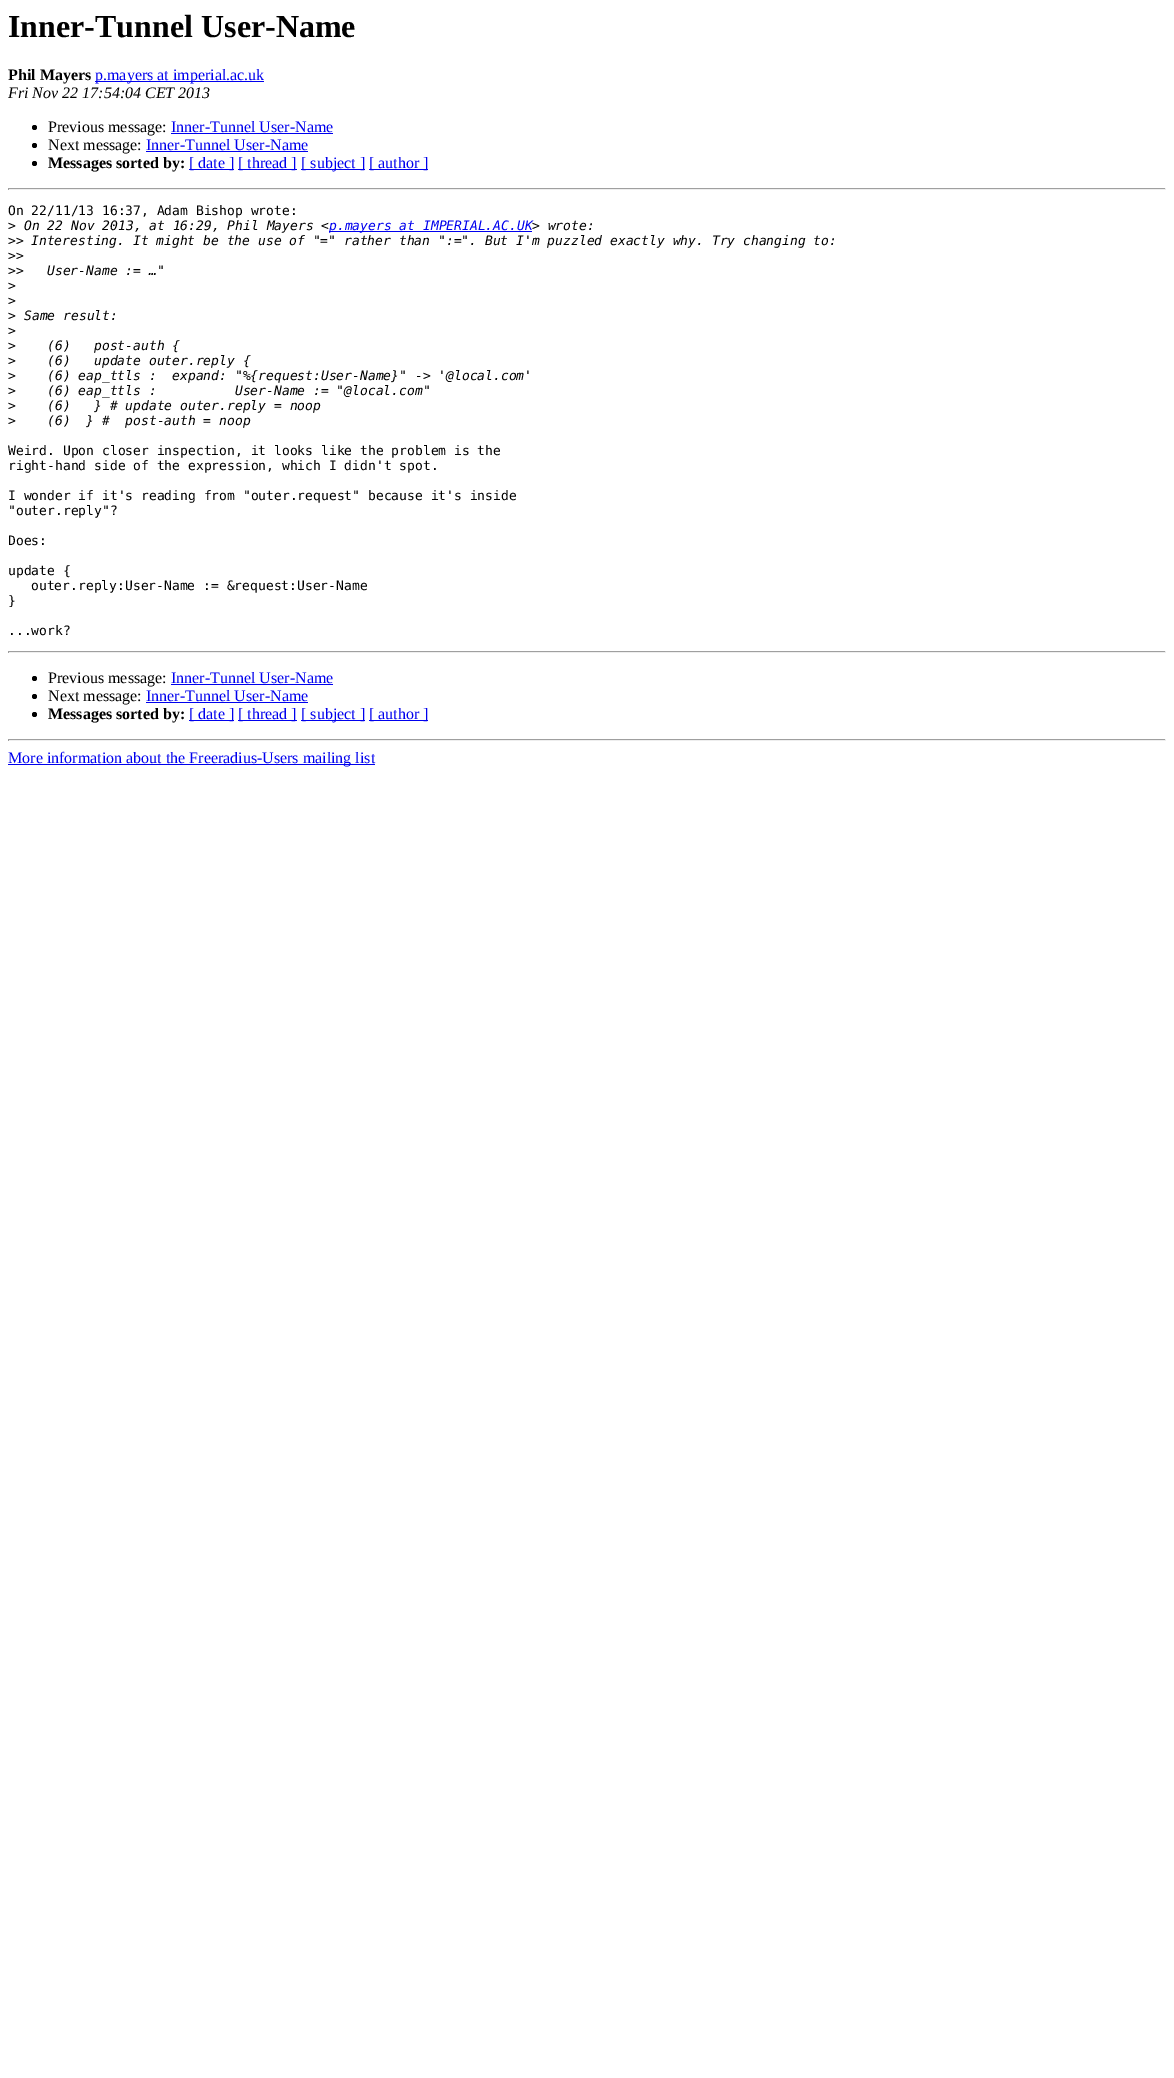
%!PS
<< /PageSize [1174 2078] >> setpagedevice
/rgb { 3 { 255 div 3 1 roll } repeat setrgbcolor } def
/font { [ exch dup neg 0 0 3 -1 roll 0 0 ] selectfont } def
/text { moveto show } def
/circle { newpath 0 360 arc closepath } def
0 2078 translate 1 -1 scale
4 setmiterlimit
255 255 255 rgb
0 0 1174 2078 rectfill
0 0 238 rgb
95 81 169 1 rectfill
0 0 0 rgb
34.5 127.5 2.5 circle fill
0 0 238 rgb
171 133 162 1 rectfill
0 0 0 rgb
34.5 145.5 2.5 circle fill
0 0 238 rgb
146 151 162 1 rectfill
0 0 0 rgb
34.5 163.5 2.5 circle fill
0 0 238 rgb
189 169 45 1 rectfill
238 169 59 1 rectfill
301 169 64 1 rectfill
369 169 59 1 rectfill
159 159 159 rgb
8 188 1158 1 rectfill
238 238 238 rgb
1165 188 1 2 rectfill
8 189 1158 1 rectfill
159 159 159 rgb
8 188 1 2 rectfill
0 0 238 rgb
329 231 203 1 rectfill
159 159 159 rgb
8 651 1158 1 rectfill
238 238 238 rgb
1165 651 1 2 rectfill
8 652 1158 1 rectfill
159 159 159 rgb
8 651 1 2 rectfill
0 0 0 rgb
34.5 678.5 2.5 circle fill
0 0 238 rgb
171 684 162 1 rectfill
0 0 0 rgb
34.5 696.5 2.5 circle fill
0 0 238 rgb
146 702 162 1 rectfill
0 0 0 rgb
34.5 714.5 2.5 circle fill
0 0 238 rgb
189 720 45 1 rectfill
238 720 59 1 rectfill
301 720 64 1 rectfill
369 720 59 1 rectfill
159 159 159 rgb
8 739 1158 1 rectfill
238 238 238 rgb
1165 739 1 2 rectfill
8 740 1158 1 rectfill
159 159 159 rgb
8 739 1 2 rectfill
0 0 238 rgb
8 764 367 1 rectfill
/LiberationSerif-Bold 32 font
0 0 0 rgb
(Inner-Tunnel User-Name) 8 37 text
/LiberationSerif-Bold 16 font
(Phil Mayers) 8 80 text
/LiberationSerif-Regular 16 font
0 0 238 rgb
(p.mayers at imperial.ac.uk) 95 80 text
/LiberationSerif-Italic 16 font
0 0 0 rgb
(Fri Nov 22 17:54:04 CET 2013) 8 98 text
/LiberationSerif-Regular 16 font
(Previous message:) 48 132 text
0 0 238 rgb
(Inner-Tunnel User-Name) 171 132 text
0 0 0 rgb
(Next message:) 48 150 text
0 0 238 rgb
(Inner-Tunnel User-Name) 146 150 text
/LiberationSerif-Bold 16 font
0 0 0 rgb
(Messages sorted by:) 48 168 text
/LiberationSerif-Regular 16 font
0 0 238 rgb
([ date ]) 189 168 text
([ thread ]) 238 168 text
([ subject ]) 301 168 text
([ author ]) 369 168 text
/DejaVuSansMono-Regular 13 font
0 0 0 rgb
(On 22/11/13 16:37, Adam Bishop wrote:) 8 215 text
(>) 8 230 text
/DejaVuSansMono-Italic 13 font
(On 22 Nov 2013, at 16:29, Phil Mayers <) 24 230 text
0 0 238 rgb
(p.mayers at IMPERIAL.AC.UK) 329 230 text
0 0 0 rgb
(> wrote:) 532 230 text
/DejaVuSansMono-Regular 13 font
(>>) 8 245 text
/DejaVuSansMono-Italic 13 font
(Interesting. It might be the use of "=" rather than ":=". But I'm puzzled exactly why. Try changing to:) 31 245 text
/DejaVuSansMono-Regular 13 font
(>>) 8 260 text
(>>) 8 275 text
/DejaVuSansMono-Italic 13 font
(User-Name := …") 47 275 text
/DejaVuSansMono-Regular 13 font
(>) 8 290 text
(>) 8 305 text
(>) 8 320 text
/DejaVuSansMono-Italic 13 font
(Same result:) 24 320 text
/DejaVuSansMono-Regular 13 font
(>) 8 335 text
(>) 8 350 text
/DejaVuSansMono-Italic 13 font
(\(6\)   post-auth {) 47 350 text
/DejaVuSansMono-Regular 13 font
(>) 8 365 text
/DejaVuSansMono-Italic 13 font
(\(6\)   update outer.reply {) 47 365 text
/DejaVuSansMono-Regular 13 font
(>) 8 380 text
/DejaVuSansMono-Italic 13 font
(\(6\) eap_ttls :  expand: "%{request:User-Name}" -> '@local.com') 47 380 text
/DejaVuSansMono-Regular 13 font
(>) 8 395 text
/DejaVuSansMono-Italic 13 font
(\(6\) eap_ttls :          User-Name := "@local.com") 47 395 text
/DejaVuSansMono-Regular 13 font
(>) 8 410 text
/DejaVuSansMono-Italic 13 font
(\(6\)   } # update outer.reply = noop) 47 410 text
/DejaVuSansMono-Regular 13 font
(>) 8 425 text
/DejaVuSansMono-Italic 13 font
(\(6\)  } #  post-auth = noop) 47 425 text
/DejaVuSansMono-Regular 13 font
(Weird. Upon closer inspection, it looks like the problem is the) 8 455 text
(right-hand side of the expression, which I didn't spot.) 8 470 text
(I wonder if it's reading from "outer.request" because it's inside) 8 500 text
("outer.reply"?) 8 515 text
(Does:) 8 545 text
(update {) 8 575 text
(outer.reply:User-Name := &request:User-Name) 31 590 text
(}) 8 605 text
(...work?) 8 635 text
/LiberationSerif-Regular 16 font
(Previous message:) 48 683 text
0 0 238 rgb
(Inner-Tunnel User-Name) 171 683 text
0 0 0 rgb
(Next message:) 48 701 text
0 0 238 rgb
(Inner-Tunnel User-Name) 146 701 text
/LiberationSerif-Bold 16 font
0 0 0 rgb
(Messages sorted by:) 48 719 text
/LiberationSerif-Regular 16 font
0 0 238 rgb
([ date ]) 189 719 text
([ thread ]) 238 719 text
([ subject ]) 301 719 text
([ author ]) 369 719 text
(More information about the Freeradius-Users mailing list) 8 763 text
showpage
